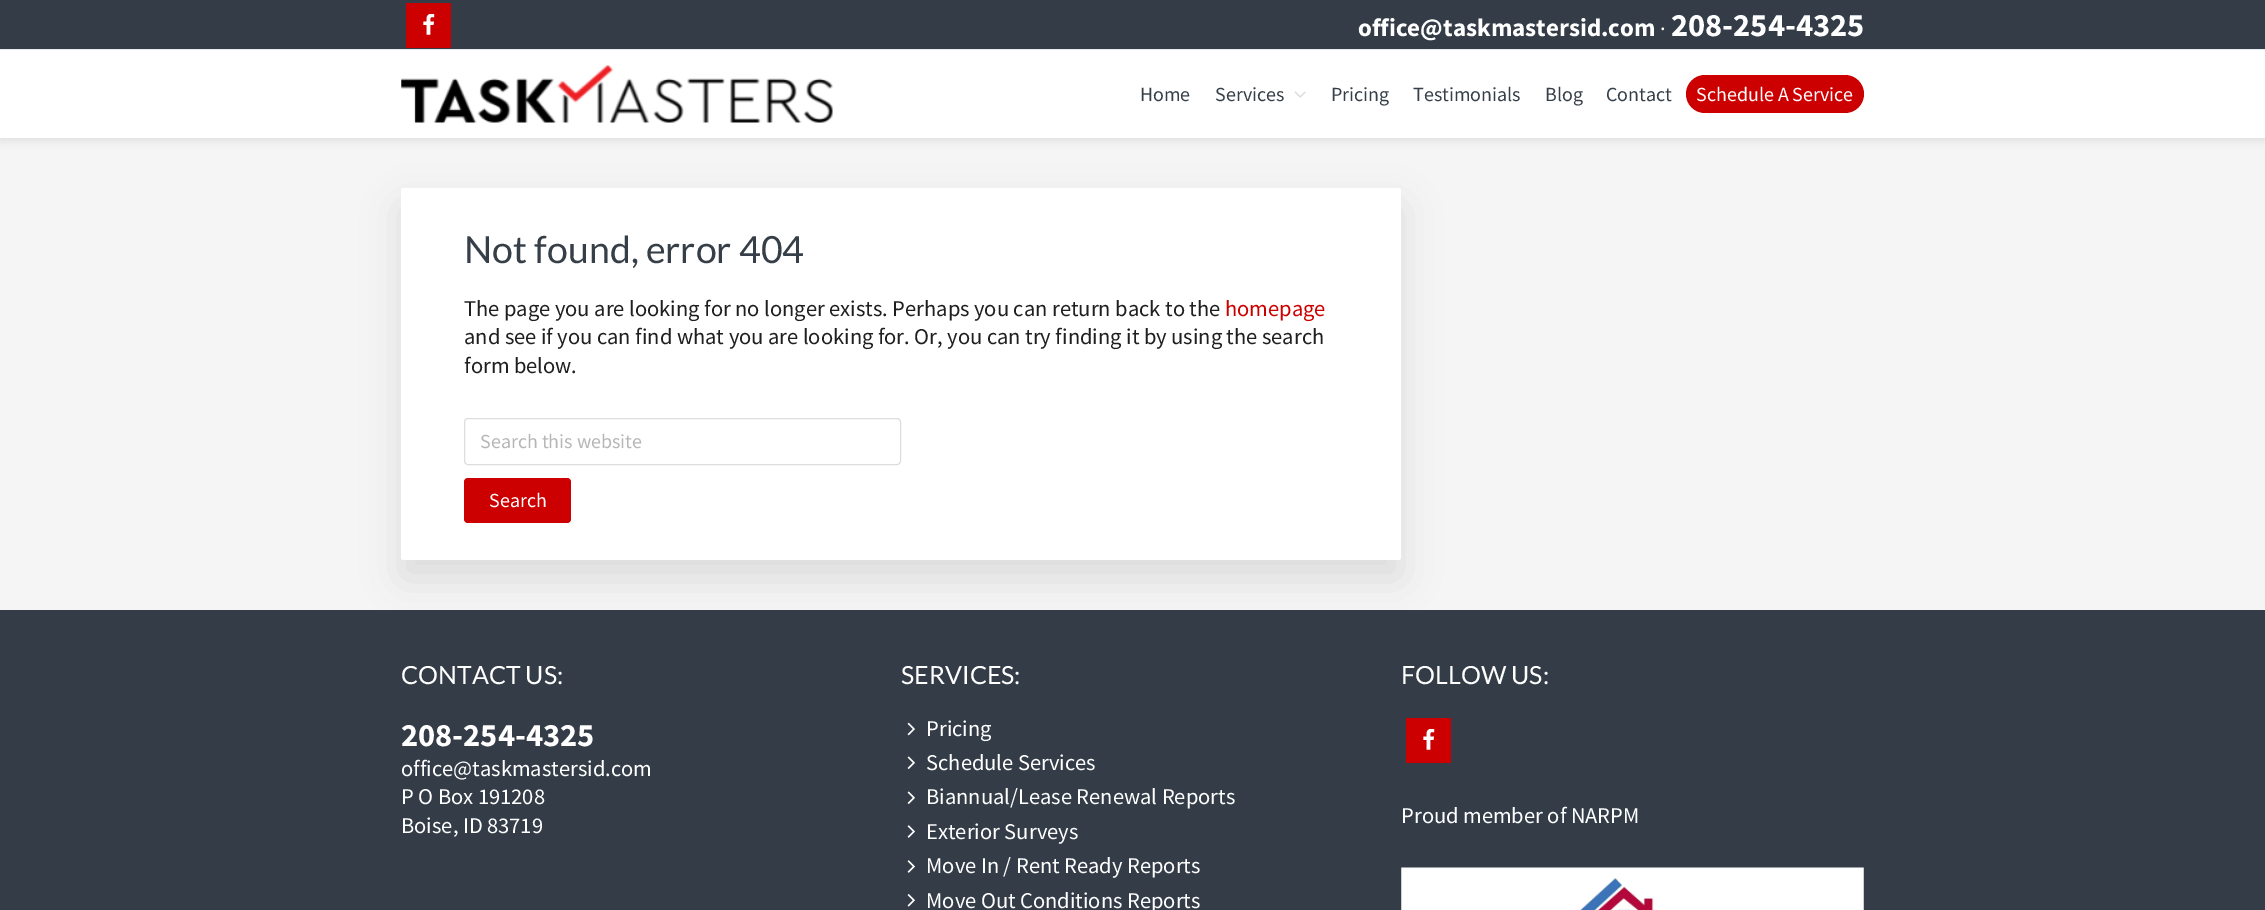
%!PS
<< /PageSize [2265 910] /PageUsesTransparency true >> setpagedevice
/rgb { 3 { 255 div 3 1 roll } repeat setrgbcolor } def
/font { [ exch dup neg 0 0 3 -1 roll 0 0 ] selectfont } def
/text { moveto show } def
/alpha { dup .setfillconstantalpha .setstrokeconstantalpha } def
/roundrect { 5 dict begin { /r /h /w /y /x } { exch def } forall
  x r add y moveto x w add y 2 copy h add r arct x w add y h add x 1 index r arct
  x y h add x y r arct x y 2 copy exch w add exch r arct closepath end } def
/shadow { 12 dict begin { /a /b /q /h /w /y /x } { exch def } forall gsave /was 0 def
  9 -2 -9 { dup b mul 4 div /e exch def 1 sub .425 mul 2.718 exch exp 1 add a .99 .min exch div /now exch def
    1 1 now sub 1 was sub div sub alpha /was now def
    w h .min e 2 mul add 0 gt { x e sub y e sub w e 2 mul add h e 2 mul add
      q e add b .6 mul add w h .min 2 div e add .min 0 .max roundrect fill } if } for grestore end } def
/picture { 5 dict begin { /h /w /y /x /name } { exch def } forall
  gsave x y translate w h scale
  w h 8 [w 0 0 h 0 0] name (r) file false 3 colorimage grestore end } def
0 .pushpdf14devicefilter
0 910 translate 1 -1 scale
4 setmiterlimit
245 245 245 rgb
0 0 2265 910 rectfill
0 0 0 rgb
0 53 2265 87 0 5 0.1 shadow
51 60 71 rgb
0 0 2265 49 rectfill
230 233 237 rgb
0 49 2265 1 rectfill
204 0 0 rgb
406 3 45 45 rectfill
(img_01.rgb) 423 14 12 21 picture
255 255 255 rgb
0 50 2265 88 rectfill
(img_02.rgb) 401 65 432 58 picture
(img_03.rgb) 1294 91 12 7 picture
204 0 0 rgb
1686 75 178 38 19 roundrect fill
51 60 71 rgb
0 610 2265 300 rectfill
0 0 0 rgb
401 206 1000 373 2.5 19 0.1 shadow
255 255 255 rgb
401 188 1000 372 2.5 roundrect fill
221 221 221 rgb
464.5 418.5 436 46 3.5 roundrect stroke
204 0 0 rgb
464 478 107 45 4 roundrect fill
(img_04.rgb) 907 722 8 14 picture
(img_05.rgb) 907 756 8 13 picture
(img_05.rgb) 907 791 8 13 picture
(img_06.rgb) 907 825 8 13 picture
(img_06.rgb) 907 860 8 13 picture
(img_07.rgb) 907 894 8 13 picture
1406 718 45 45 rectfill
(img_01.rgb) 1423 729 12 21 picture
(img_08.rgb) 1401 867 463 43 picture
/SourceSansPro-Bold 25 font
255 255 255 rgb
(office@taskmastersid.com) 1358 36 text
/SourceSansPro-Regular 22.5 font
(·) 1660 36 text
/SourceSansPro-Bold 32.5 font
(208-254-4325) 1671 36 text
/SourceSansPro-Regular 20 font
54 63 72 rgb
(Home) 1140 101 text
(Services) 1215 101 text
(Pricing) 1331 101 text
(Testimonials) 1413 101 text
(Blog) 1545 101 text
(Contact) 1606 101 text
255 255 255 rgb
(Schedule A Service) 1696 101 text
/Lato-Regular 37.5 font
54 63 72 rgb
(Not found, error 404) 464 263 text
/SourceSansPro-Regular 22.5 font
31 31 31 rgb
(The page you are looking for no longer exists. Perhaps you can return back to the) 464 316 text
204 0 0 rgb
(homepage) 1225 316 text
31 31 31 rgb
(and see if you can find what you are looking for. Or, you can try finding it by using the search) 464 344 text
(form below.) 464 373 text
/SourceSansPro-Regular 20 font
182 182 182 rgb
(Search this website) 480 448 text
255 255 255 rgb
(Search) 489 507 text
/Lato-Regular 25 font
(CONTACT US:) 401 684 text
/SourceSansPro-Bold 32.5 font
(208-254-4325) 401 746 text
/SourceSansPro-Regular 22.5 font
(office@taskmastersid.com) 401 776 text
(P O Box 191208) 401 804 text
(Boise, ID 83719) 401 833 text
/Lato-Regular 25 font
(SERVICES:) 901 684 text
/SourceSansPro-Regular 22.5 font
(Pricing) 926 736 text
(Schedule Services) 926 770 text
(Biannual/Lease Renewal Reports) 926 804 text
(Exterior Surveys) 926 839 text
(Move In / Rent Ready Reports) 926 873 text
(Move Out Conditions Reports) 926 908 text
/Lato-Regular 25 font
(FOLLOW US:) 1401 684 text
/SourceSansPro-Regular 22.5 font
(Proud member of NARPM) 1401 823 text
.poppdf14devicefilter showpage
